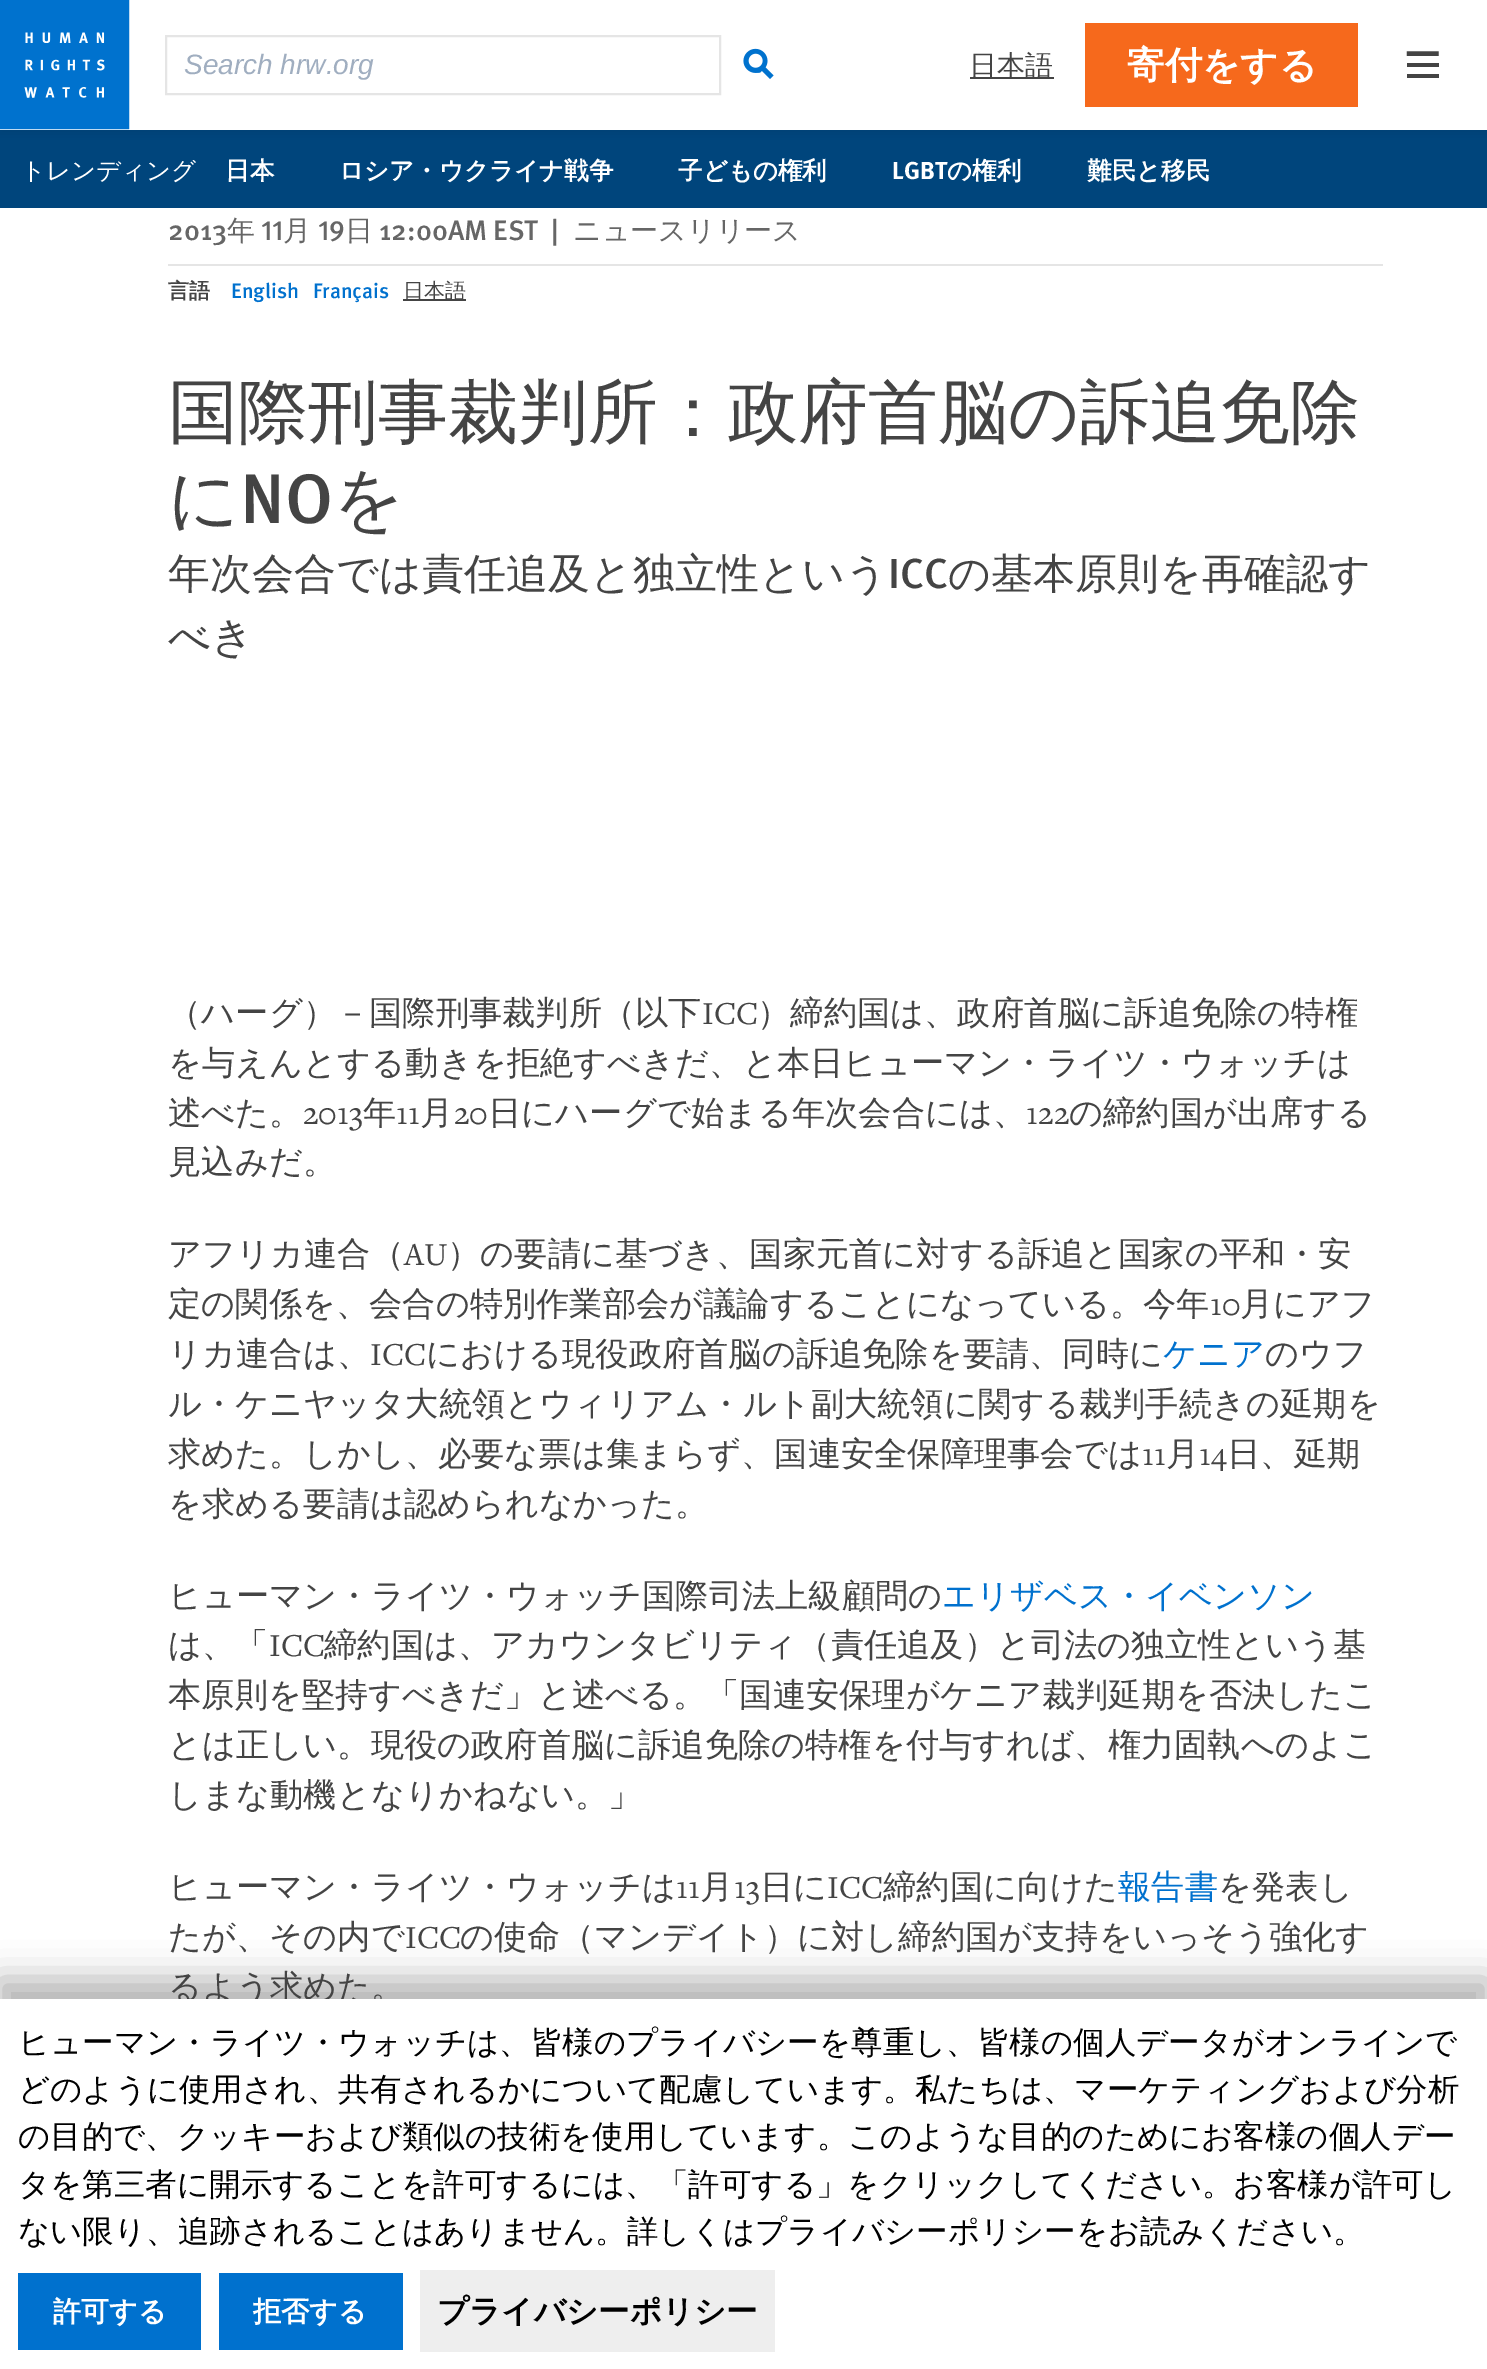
%!PS
<< /PageSize [1487 2369] /PageUsesTransparency true >> setpagedevice
/rgb { 3 { 255 div 3 1 roll } repeat setrgbcolor } def
/font { [ exch dup neg 0 0 3 -1 roll 0 0 ] selectfont } def
/text { moveto show } def
/alpha { dup .setfillconstantalpha .setstrokeconstantalpha } def
/roundrect { 5 dict begin { /r /h /w /y /x } { exch def } forall
  x r add y moveto x w add y 2 copy h add r arct x w add y h add x 1 index r arct
  x y h add x y r arct x y 2 copy exch w add exch r arct closepath end } def
/shadow { 12 dict begin { /a /b /q /h /w /y /x } { exch def } forall gsave /was 0 def
  9 -2 -9 { dup b mul 4 div /e exch def 1 sub .425 mul 2.718 exch exp 1 add a .99 .min exch div /now exch def
    1 1 now sub 1 was sub div sub alpha /was now def
    w h .min e 2 mul add 0 gt { x e sub y e sub w e 2 mul add h e 2 mul add
      q e add b .6 mul add w h .min 2 div e add .min 0 .max roundrect fill } if } for grestore end } def
/picture { 5 dict begin { /h /w /y /x /name } { exch def } forall
  gsave x y translate w h scale
  w h 8 [w 0 0 h 0 0] name (r) file false 3 colorimage grestore end } def
0 .pushpdf14devicefilter
0 2369 translate 1 -1 scale
4 setmiterlimit
255 255 255 rgb
0 0 1487 2369 rectfill
0 69 124 rgb
0 130 1487 78 rectfill
0 0 0 rgb
0 0 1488 130 0 7 0.1 shadow
255 255 255 rgb
0 0 1487 130 rectfill
(img_01.rgb) 0 0 130 130 picture
229 229 229 rgb
2 setlinewidth
166 36 554 58 rectstroke
(img_02.rgb) 743 48 31 31 picture
68 68 68 rgb
970 77 84 2 rectfill
246 105 28 rgb
1085 23 273 84 rectfill
68 68 68 rgb
4.4 setlinewidth
2 setlinecap
1436.5 53.5 moveto -27.5 0 rlineto stroke
1407 63 32 4 rectfill
1407 74 32 4 rectfill
229 229 229 rgb
168 264 1215 2 rectfill
68 68 68 rgb
403 299 63 2 rectfill
0 0 0 rgb
-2 1979 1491 375 0 17.5 0.3 shadow
/LiberationSans-Italic 28 font
160 174 192 rgb
(Search hrw.org) 184 74 text
/WenQuanYiZenHei-Medium 28 font
68 68 68 rgb
(日本語) 969 75 text
/WenQuanYiZenHei-Bold 37.5 font
255 255 255 rgb
(寄付をする) 1127 78 text
/WenQuanYiZenHei-Medium 24.5 font
(トレンディング) 21 179 text
/WenQuanYiZenHei-Bold 24.5 font
(日本) 225 179 text
(ロシア・ウクライナ戦争) 339 179 text
(子どもの権利) 678 179 text
/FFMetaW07-Bold 24.5 font
(LGBT) 892 179 text
/WenQuanYiZenHei-Bold 24.5 font
(の権利) 947 179 text
(難民と移民) 1087 179 text
/FFMetaW07-Medium 28 font
102 102 102 rgb
(2013) 168 240 text
/WenQuanYiZenHei-Medium 28 font
(年) 227 240 text
/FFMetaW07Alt-Medium 28 font
(11) 261 240 text
/WenQuanYiZenHei-Medium 28 font
(月) 283 240 text
/FFMetaW07Alt-Medium 28 font
(19) 318 240 text
/WenQuanYiZenHei-Medium 28 font
(日) 345 240 text
/FFMetaW07-Medium 28 font
(12:00AM EST) 379 240 text
(|) 551 240 text
/WenQuanYiZenHei-Medium 28 font
(ニュースリリース) 573 240 text
/WenQuanYiZenHei-Bold 21 font
68 68 68 rgb
(言語) 168 298 text
/FFMetaW07-Medium 21 font
0 113 206 rgb
(English) 231 298 text
(Français) 313 298 text
/WenQuanYiZenHei-Medium 21 font
68 68 68 rgb
(日本語) 403 298 text
/WenQuanYiZenHei-Medium 70 font
(国際刑事裁判所：政府首脳の訴追免除) 168 436 text
(に) 168 523 text
/FFMetaW07-Medium 70 font
(NO) 240 523 text
/WenQuanYiZenHei-Medium 70 font
(を) 333 523 text
/WenQuanYiZenHei-Medium 42 font
(年次会合では責任追及と独立性という) 168 588 text
/FFMetaW07-Medium 42 font
(ICC) 888 588 text
/WenQuanYiZenHei-Medium 42 font
(の基本原則を再確認す) 948 588 text
(べき) 168 651 text
/WenQuanYiZenHei-Medium 33.25 font
(（ハーグ）－国際刑事裁判所（以下) 168 1024 text
/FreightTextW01-Regular 33.25 font
(ICC) 702 1024 text
/WenQuanYiZenHei-Medium 33.25 font
(）締約国は、政府首脳に訴追免除の特権) 757 1024 text
(を与えんとする動きを拒絶すべきだ、と本日ヒューマン・ライツ・ウォッチは) 168 1074 text
(述べた。) 168 1124 text
/FreightTextW01-Regular 33.25 font
(2013) 303 1124 text
/WenQuanYiZenHei-Medium 33.25 font
(年) 363 1124 text
/FreightTextW01-Regular 33.25 font
(11) 396 1124 text
/WenQuanYiZenHei-Medium 33.25 font
(月) 420 1124 text
/FreightTextW01-Regular 33.25 font
(20) 454 1124 text
/WenQuanYiZenHei-Medium 33.25 font
(日にハーグで始まる年次会合には、) 488 1124 text
/FreightTextW01-Regular 33.25 font
(122) 1026 1124 text
/WenQuanYiZenHei-Medium 33.25 font
(の締約国が出席する) 1069 1124 text
(見込みだ。) 168 1173 text
(アフリカ連合（) 168 1265 text
/FreightTextW01-Regular 33.25 font
(AU) 404 1265 text
/WenQuanYiZenHei-Medium 33.25 font
(）の要請に基づき、国家元首に対する訴追と国家の平和・安) 447 1265 text
(定の関係を、会合の特別作業部会が議論することになっている。今年) 168 1315 text
/FreightTextW01-Regular 33.25 font
(10) 1210 1315 text
/WenQuanYiZenHei-Medium 33.25 font
(月にアフ) 1240 1315 text
(リカ連合は、) 168 1365 text
/FreightTextW01-Regular 33.25 font
(ICC) 370 1365 text
/WenQuanYiZenHei-Medium 33.25 font
(における現役政府首脳の訴追免除を要請、同時に) 426 1365 text
0 113 206 rgb
(ケニア) 1163 1365 text
68 68 68 rgb
(のウフ) 1265 1365 text
(ル・ケニヤッタ大統領とウィリアム・ルト副大統領に関する裁判手続きの延期を) 168 1415 text
(求めた。しかし、必要な票は集まらず、国連安全保障理事会では) 168 1465 text
/FreightTextW01-Regular 33.25 font
(11) 1142 1465 text
/WenQuanYiZenHei-Medium 33.25 font
(月) 1166 1465 text
/FreightTextW01-Regular 33.25 font
(14) 1199 1465 text
/WenQuanYiZenHei-Medium 33.25 font
(日、延期) 1227 1465 text
(を求める要請は認められなかった。) 168 1515 text
(ヒューマン・ライツ・ウォッチ国際司法上級顧問の) 168 1607 text
0 113 206 rgb
(エリザベス・イベンソン) 942 1607 text
68 68 68 rgb
(は、「) 168 1656 text
/FreightTextW01-Regular 33.25 font
(ICC) 269 1656 text
/WenQuanYiZenHei-Medium 33.25 font
(締約国は、アカウンタビリティ（責任追及）と司法の独立性という基) 324 1656 text
(本原則を堅持すべきだ」と述べる。「国連安保理がケニア裁判延期を否決したこ) 168 1706 text
(とは正しい。現役の政府首脳に訴追免除の特権を付与すれば、権力固執へのよこ) 168 1756 text
(しまな動機となりかねない。」) 168 1806 text
(ヒューマン・ライツ・ウォッチは) 168 1898 text
/FreightTextW01-Regular 33.25 font
(11) 676 1898 text
/WenQuanYiZenHei-Medium 33.25 font
(月) 700 1898 text
/FreightTextW01-Regular 33.25 font
(13) 734 1898 text
/WenQuanYiZenHei-Medium 33.25 font
(日に) 760 1898 text
/FreightTextW01-Regular 33.25 font
(ICC) 827 1898 text
/WenQuanYiZenHei-Medium 33.25 font
(締約国に向けた) 883 1898 text
0 113 206 rgb
(報告書) 1118 1898 text
68 68 68 rgb
(を発表し) 1218 1898 text
(たが、その内で) 168 1948 text
/FreightTextW01-Regular 33.25 font
(ICC) 405 1948 text
/WenQuanYiZenHei-Medium 33.25 font
(の使命（マンデイト）に対し締約国が支持をいっそう強化す) 460 1948 text
(るよう求めた。) 168 1998 text
255 255 255 rgb
0 1999 1487 370 rectfill
/WenQuanYiZenHei-Medium 31.5 font
0 0 0 rgb
(ヒューマン・ライツ・ウォッチは、皆様のプライバシーを尊重し、皆様の個人データがオンラインで) 18 2053 text
(どのように使用され、共有されるかについて配慮しています。私たちは、マーケティングおよび分析) 18 2100 text
(の目的で、クッキーおよび類似の技術を使用しています。このような目的のためにお客様の個人デー) 18 2147 text
(タを第三者に開示することを許可するには、「許可する」をクリックしてください。お客様が許可し) 18 2195 text
(ない限り、追跡されることはありません。詳しくはプライバシーポリシーをお読みください。) 18 2242 text
0 113 206 rgb
18 2273 183 77 rectfill
/WenQuanYiZenHei-Bold 28 font
255 255 255 rgb
(許可する) 53 2321 text
0 113 206 rgb
219 2273 184 77 rectfill
255 255 255 rgb
(拒否する) 253 2321 text
238 238 238 rgb
420 2270 355 82 rectfill
/WenQuanYiZenHei-Bold 31.5 font
0 0 0 rgb
(プライバシーポリシー) 437 2322 text
.poppdf14devicefilter showpage
